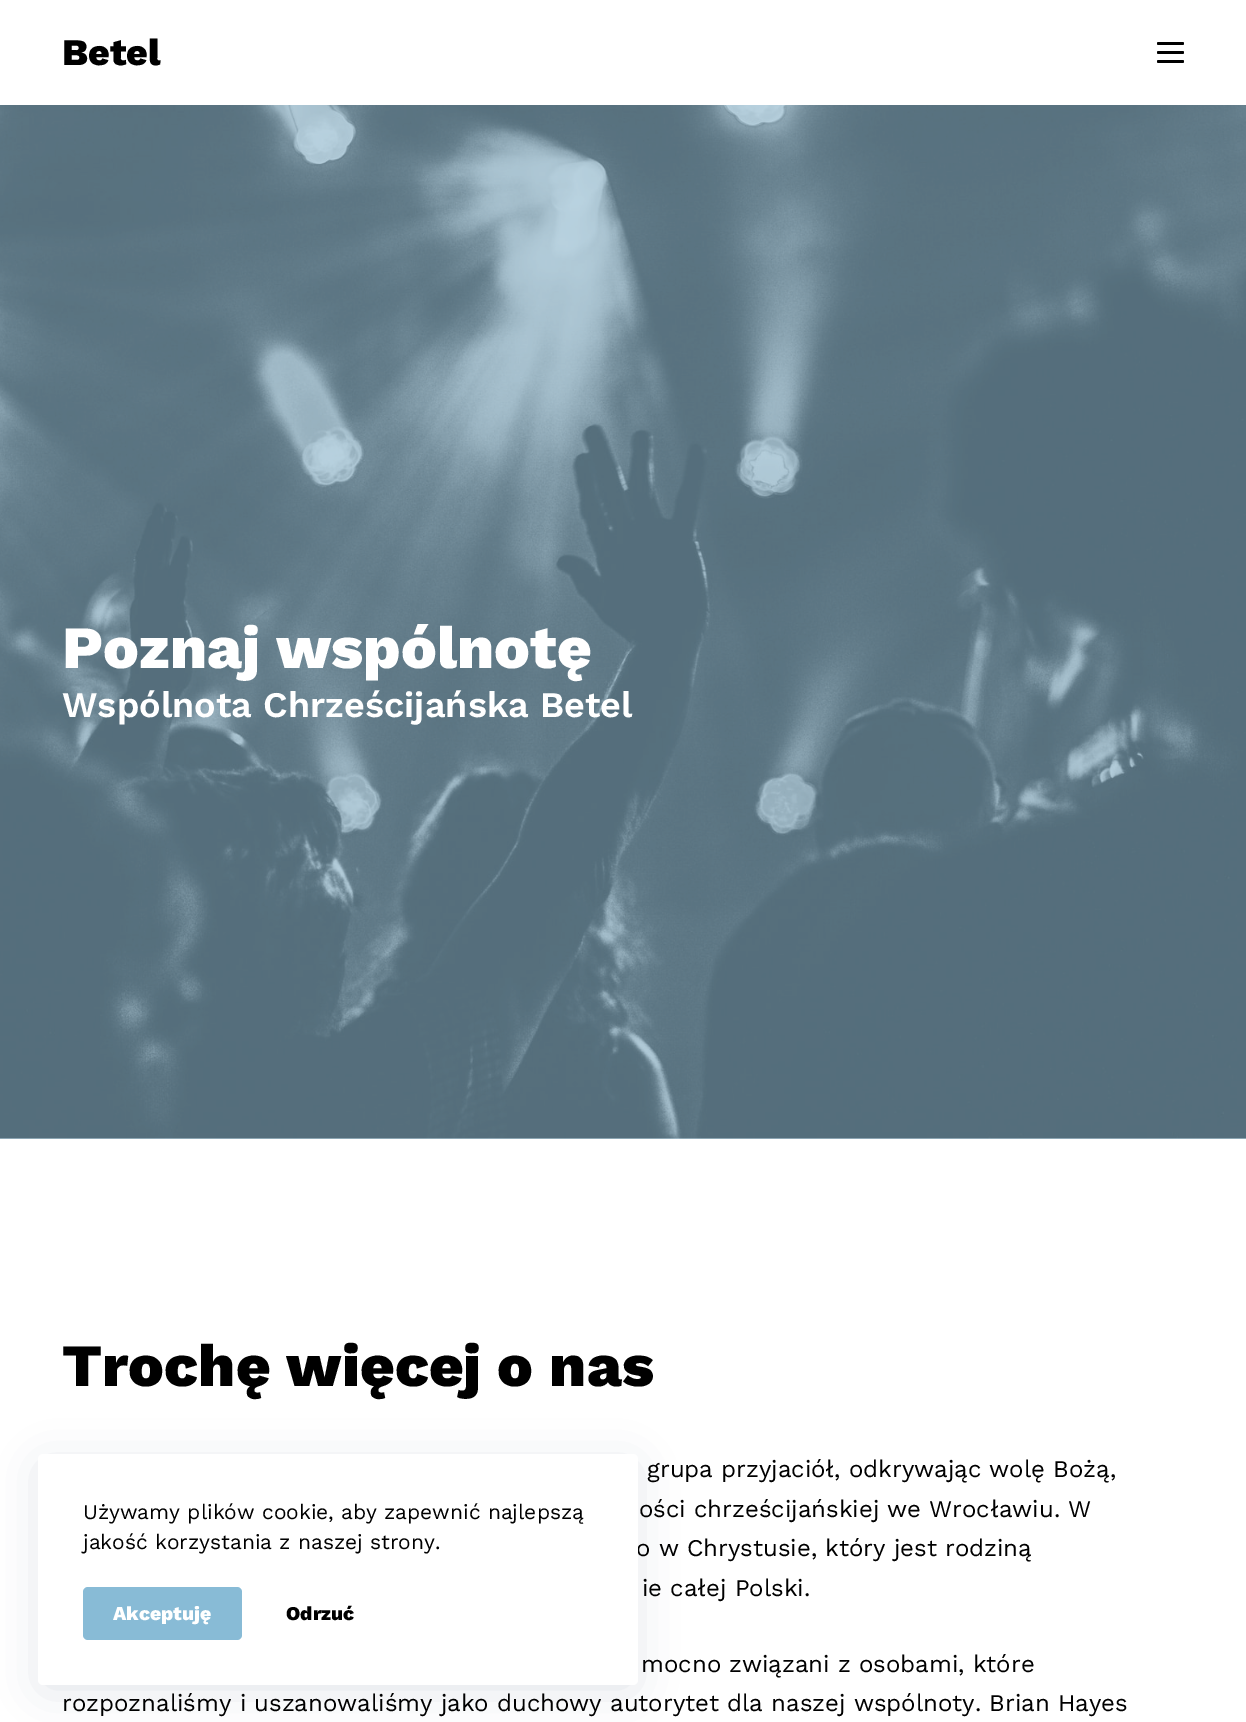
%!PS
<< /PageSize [1246 1722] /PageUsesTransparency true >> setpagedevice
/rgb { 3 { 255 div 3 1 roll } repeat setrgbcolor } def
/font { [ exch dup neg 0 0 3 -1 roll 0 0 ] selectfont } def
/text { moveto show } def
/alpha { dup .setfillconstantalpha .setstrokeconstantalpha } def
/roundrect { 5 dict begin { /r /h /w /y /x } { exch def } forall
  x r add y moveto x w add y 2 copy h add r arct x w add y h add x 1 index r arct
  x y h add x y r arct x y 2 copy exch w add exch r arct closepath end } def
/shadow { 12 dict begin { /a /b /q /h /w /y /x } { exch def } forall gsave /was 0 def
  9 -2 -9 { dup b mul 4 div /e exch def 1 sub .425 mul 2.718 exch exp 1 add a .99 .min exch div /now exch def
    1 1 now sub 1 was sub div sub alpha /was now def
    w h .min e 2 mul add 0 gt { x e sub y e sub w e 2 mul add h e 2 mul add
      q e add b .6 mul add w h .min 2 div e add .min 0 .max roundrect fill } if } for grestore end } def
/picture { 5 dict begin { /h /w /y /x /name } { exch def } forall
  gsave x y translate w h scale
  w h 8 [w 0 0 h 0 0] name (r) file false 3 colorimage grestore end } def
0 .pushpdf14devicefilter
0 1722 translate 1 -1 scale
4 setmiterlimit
255 255 255 rgb
0 0 1246 1722 rectfill
196 221 235 rgb
0 1138 1246 1 rectfill
0 0 0 rgb
1157 42 27 3 1.5 roundrect fill
1157 51 27 3 1.5 roundrect fill
1157 60 27 3 1.5 roundrect fill
(img_01.rgb) 0 105 1246 1034 picture
34 56 101 rgb
45 1469 585 216 0 22.5 0.15 shadow
/WorkSans-ExtraBold 37.5 font
0 0 0 rgb
(Betel) 62 65 text
/WorkSans-ExtraBold 60 font
255 255 255 rgb
(Poznaj wspólnotę) 62 668 text
/WorkSans-SemiBold 36 font
(Wspólnota Chrześcijańska Betel) 62 717 text
/WorkSans-ExtraBold 60 font
0 0 0 rgb
(Trochę więcej o nas) 62 1386 text
/WorkSans-Regular 24 font
(grupa przyjaciół, odkrywając wolę Bożą,) 647 1477 text
(ości chrześcijańskiej we Wrocławiu. W) 639 1517 text
(o w Chrystusie, który jest rodziną) 636 1556 text
(ie całej Polski.) 642 1596 text
(mocno związani z osobami, które) 641 1672 text
(rozpoznaliśmy i uszanowaliśmy jako duchowy autorytet dla naszej wspólnoty. Brian Hayes) 62 1711 text
255 255 255 rgb
38 1454 600 231 5 roundrect fill
/WorkSans-Regular 21 font
0 0 0 rgb
(Używamy plików cookie, aby zapewnić najlepszą) 83 1519 text
(jakość korzystania z naszej strony.) 83 1549 text
136 187 214 rgb
83 1587 159 53 5 roundrect fill
/WorkSans-ExtraBold 19.5 font
255 255 255 rgb
(Akceptuję) 113 1620 text
0 0 0 rgb
(Odrzuć) 286 1620 text
.poppdf14devicefilter showpage
